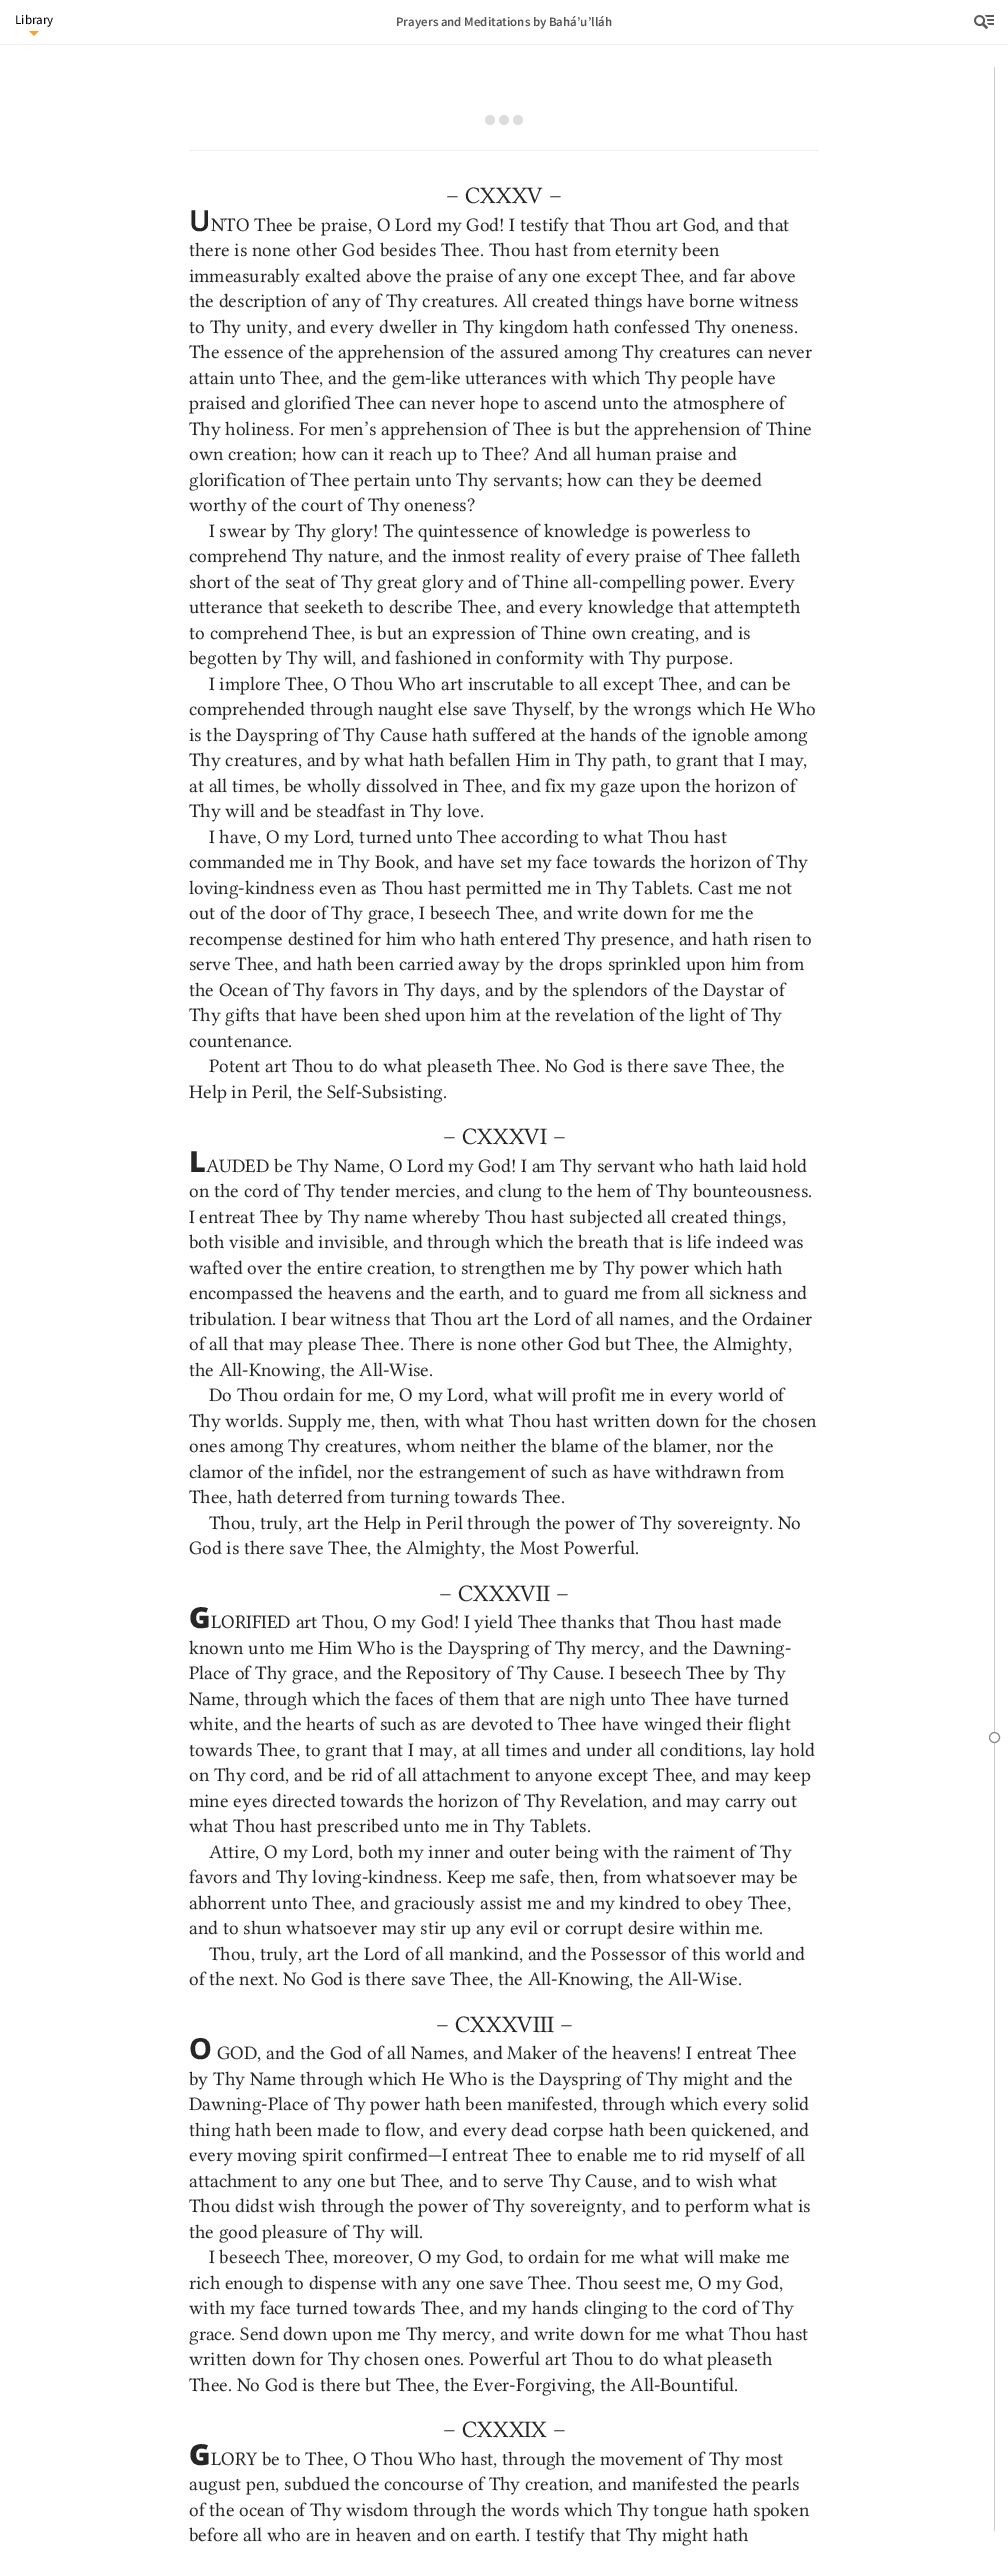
%!PS
<< /PageSize [1008 2553] >> setpagedevice
/rgb { 3 { 255 div 3 1 roll } repeat setrgbcolor } def
/font { [ exch dup neg 0 0 3 -1 roll 0 0 ] selectfont } def
/text { moveto show } def
/circle { newpath 0 360 arc closepath } def
/picture { 5 dict begin { /h /w /y /x /name } { exch def } forall
  gsave x y translate w h scale
  w h 8 [w 0 0 h 0 0] name (r) file false 3 colorimage grestore end } def
0 2553 translate 1 -1 scale
4 setmiterlimit
255 255 255 rgb
0 0 1008 2553 rectfill
238 238 238 rgb
0 44 1008 1 rectfill
245 166 35 rgb
29 31 moveto 10 0 rlineto -5 5 rlineto closepath fill
(img_01.rgb) 974 15 20 14 picture
238 238 238 rgb
189 150 630 1 rectfill
221 221 221 rgb
490 120 5 circle fill
504 120 5 circle fill
518 120 5 circle fill
204 204 204 rgb
994 67 1 2464 rectfill
255 255 255 rgb
994.5 1737.5 5 circle gsave fill grestore
136 136 136 rgb
stroke
/SourceSansPro-Regular 13 font
0 0 0 rgb
(Library) 15 24 text
/SourceSansPro-SemiBold 13 font
86 86 86 rgb
(Prayers and Meditations by Bahá’u’lláh) 396 26 text
/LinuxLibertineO-Regular 21 font
38 38 38 rgb
(– CXXXV –) 446 203 text
/NotoSans-SemiBold 29 font
(U) 189 231 text
/LinuxLibertineO-Regular 17 font
(NTO Thee be praise, O Lord my God! I testify that Thou art God, and that) 211 231 text
(there is none other God besides Thee. Thou hast from eternity been) 189 256 text
(immeasurably exalted above the praise of any one except Thee, and far above) 189 282 text
(the description of any of Thy creatures. All created things have borne witness) 189 307 text
(to Thy unity, and every dweller in Thy kingdom hath confessed Thy oneness.) 189 333 text
(The essence of the apprehension of the assured among Thy creatures can never) 189 358 text
(attain unto Thee, and the gem-like utterances with which Thy people have) 189 384 text
(praised and glorified Thee can never hope to ascend unto the atmosphere of) 189 409 text
(Thy holiness. For men’s apprehension of Thee is but the apprehension of Thine) 189 435 text
(own creation; how can it reach up to Thee? And all human praise and) 189 460 text
(glorification of Thee pertain unto Thy servants; how can they be deemed) 189 486 text
(worthy of the court of Thy oneness?) 189 511 text
(I swear by Thy glory! The quintessence of knowledge is powerless to) 209 537 text
(comprehend Thy nature, and the inmost reality of every praise of Thee falleth) 189 562 text
(short of the seat of Thy great glory and of Thine all-compelling power. Every) 189 588 text
(utterance that seeketh to describe Thee, and every knowledge that attempteth) 189 613 text
(to comprehend Thee, is but an expression of Thine own creating, and is) 189 639 text
(begotten by Thy will, and fashioned in conformity with Thy purpose.) 189 664 text
(I implore Thee, O Thou Who art inscrutable to all except Thee, and can be) 209 690 text
(comprehended through naught else save Thyself, by the wrongs which He Who) 189 715 text
(is the Dayspring of Thy Cause hath suffered at the hands of the ignoble among) 189 741 text
(Thy creatures, and by what hath befallen Him in Thy path, to grant that I may,) 189 766 text
(at all times, be wholly dissolved in Thee, and fix my gaze upon the horizon of) 189 792 text
(Thy will and be steadfast in Thy love.) 189 817 text
(I have, O my Lord, turned unto Thee according to what Thou hast) 209 843 text
(commanded me in Thy Book, and have set my face towards the horizon of Thy) 189 868 text
(loving-kindness even as Thou hast permitted me in Thy Tablets. Cast me not) 189 894 text
(out of the door of Thy grace, I beseech Thee, and write down for me the) 189 919 text
(recompense destined for him who hath entered Thy presence, and hath risen to) 189 945 text
(serve Thee, and hath been carried away by the drops sprinkled upon him from) 189 970 text
(the Ocean of Thy favors in Thy days, and by the splendors of the Daystar of) 189 996 text
(Thy gifts that have been shed upon him at the revelation of the light of Thy) 189 1021 text
(countenance.) 189 1047 text
(Potent art Thou to do what pleaseth Thee. No God is there save Thee, the) 209 1072 text
(Help in Peril, the Self-Subsisting.) 189 1098 text
/LinuxLibertineO-Regular 21 font
(– CXXXVI –) 443 1144 text
/NotoSans-Black 29 font
(L) 189 1172 text
/LinuxLibertineO-Regular 17 font
(AUDED be Thy Name, O Lord my God! I am Thy servant who hath laid hold) 206 1172 text
(on the cord of Thy tender mercies, and clung to the hem of Thy bounteousness.) 189 1197 text
(I entreat Thee by Thy name whereby Thou hast subjected all created things,) 189 1223 text
(both visible and invisible, and through which the breath that is life indeed was) 189 1248 text
(wafted over the entire creation, to strengthen me by Thy power which hath) 189 1274 text
(encompassed the heavens and the earth, and to guard me from all sickness and) 189 1299 text
(tribulation. I bear witness that Thou art the Lord of all names, and the Ordainer) 189 1325 text
(of all that may please Thee. There is none other God but Thee, the Almighty,) 189 1350 text
(the All-Knowing, the All-Wise.) 189 1376 text
(Do Thou ordain for me, O my Lord, what will profit me in every world of) 209 1401 text
(Thy worlds. Supply me, then, with what Thou hast written down for the chosen) 189 1427 text
(ones among Thy creatures, whom neither the blame of the blamer, nor the) 189 1452 text
(clamor of the infidel, nor the estrangement of such as have withdrawn from) 189 1478 text
(Thee, hath deterred from turning towards Thee.) 189 1503 text
(Thou, truly, art the Help in Peril through the power of Thy sovereignty. No) 209 1529 text
(God is there save Thee, the Almighty, the Most Powerful.) 189 1554 text
/LinuxLibertineO-Regular 21 font
(– CXXXVII –) 439 1601 text
/NotoSans-Black 29 font
(G) 189 1628 text
/LinuxLibertineO-Regular 17 font
(LORIFIED art Thou, O my God! I yield Thee thanks that Thou hast made) 211 1628 text
(known unto me Him Who is the Dayspring of Thy mercy, and the Dawning-) 189 1654 text
(Place of Thy grace, and the Repository of Thy Cause. I beseech Thee by Thy) 189 1679 text
(Name, through which the faces of them that are nigh unto Thee have turned) 189 1705 text
(white, and the hearts of such as are devoted to Thee have winged their flight) 189 1730 text
(towards Thee, to grant that I may, at all times and under all conditions, lay hold) 189 1756 text
(on Thy cord, and be rid of all attachment to anyone except Thee, and may keep) 189 1781 text
(mine eyes directed towards the horizon of Thy Revelation, and may carry out) 189 1807 text
(what Thou hast prescribed unto me in Thy Tablets.) 189 1832 text
(Attire, O my Lord, both my inner and outer being with the raiment of Thy) 209 1858 text
(favors and Thy loving-kindness. Keep me safe, then, from whatsoever may be) 189 1883 text
(abhorrent unto Thee, and graciously assist me and my kindred to obey Thee,) 189 1909 text
(and to shun whatsoever may stir up any evil or corrupt desire within me.) 189 1934 text
(Thou, truly, art the Lord of all mankind, and the Possessor of this world and) 209 1960 text
(of the next. No God is there save Thee, the All-Knowing, the All-Wise.) 189 1985 text
/LinuxLibertineO-Regular 21 font
(– CXXXVIII –) 436 2032 text
/NotoSans-Bold 29 font
(O) 189 2059 text
/LinuxLibertineO-Regular 17 font
(GOD, and the God of all Names, and Maker of the heavens! I entreat Thee) 217 2059 text
(by Thy Name through which He Who is the Dayspring of Thy might and the) 189 2085 text
(Dawning-Place of Thy power hath been manifested, through which every solid) 189 2110 text
(thing hath been made to flow, and every dead corpse hath been quickened, and) 189 2136 text
(every moving spirit confirmed—I entreat Thee to enable me to rid myself of all) 189 2161 text
(attachment to any one but Thee, and to serve Thy Cause, and to wish what) 189 2187 text
(Thou didst wish through the power of Thy sovereignty, and to perform what is) 189 2212 text
(the good pleasure of Thy will.) 189 2238 text
(I beseech Thee, moreover, O my God, to ordain for me what will make me) 209 2263 text
(rich enough to dispense with any one save Thee. Thou seest me, O my God,) 189 2289 text
(with my face turned towards Thee, and my hands clinging to the cord of Thy) 189 2314 text
(grace. Send down upon me Thy mercy, and write down for me what Thou hast) 189 2340 text
(written down for Thy chosen ones. Powerful art Thou to do what pleaseth) 189 2365 text
(Thee. No God is there but Thee, the Ever-Forgiving, the All-Bountiful.) 189 2391 text
/LinuxLibertineO-Regular 21 font
(– CXXXIX –) 443 2437 text
/NotoSans-Black 29 font
(G) 189 2465 text
/LinuxLibertineO-Regular 17 font
(LORY be to Thee, O Thou Who hast, through the movement of Thy most) 211 2465 text
(august pen, subdued the concourse of Thy creation, and manifested the pearls) 189 2490 text
(of the ocean of Thy wisdom through the words which Thy tongue hath spoken) 189 2516 text
(before all who are in heaven and on earth. I testify that Thy might hath) 189 2541 text
showpage
